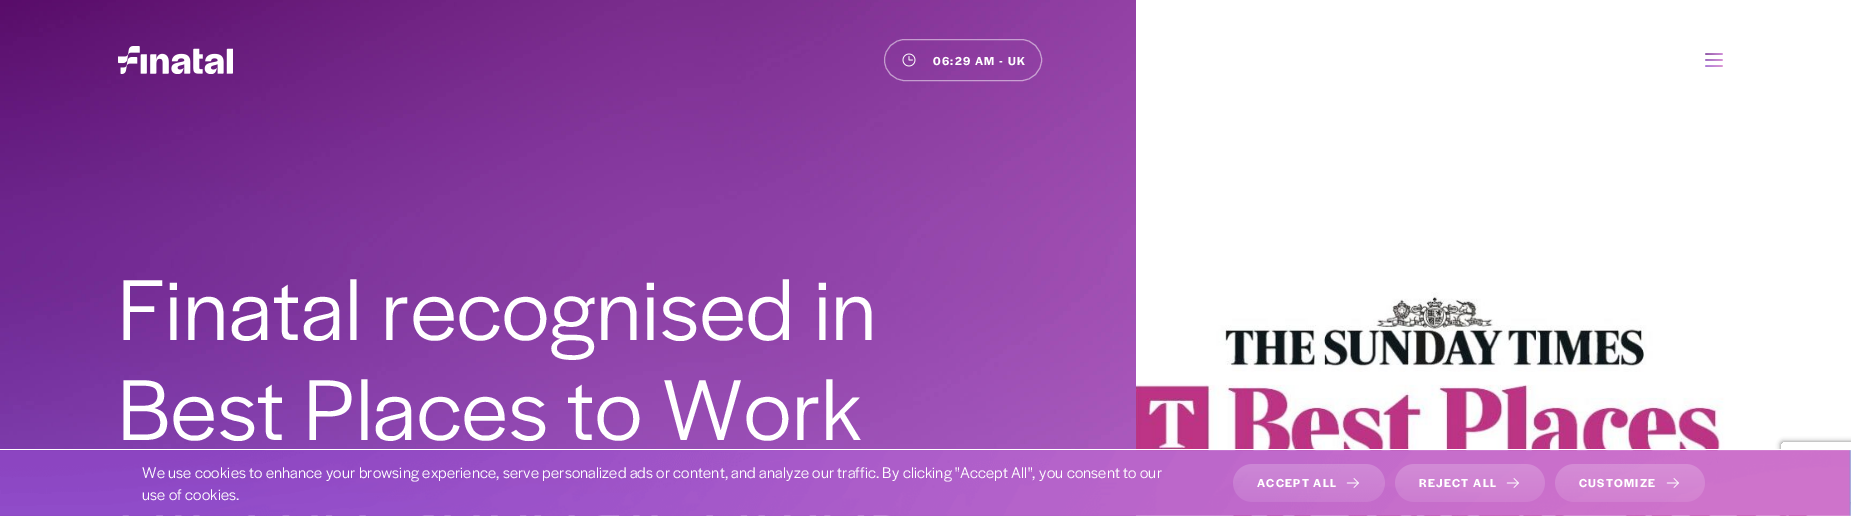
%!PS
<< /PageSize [1851 516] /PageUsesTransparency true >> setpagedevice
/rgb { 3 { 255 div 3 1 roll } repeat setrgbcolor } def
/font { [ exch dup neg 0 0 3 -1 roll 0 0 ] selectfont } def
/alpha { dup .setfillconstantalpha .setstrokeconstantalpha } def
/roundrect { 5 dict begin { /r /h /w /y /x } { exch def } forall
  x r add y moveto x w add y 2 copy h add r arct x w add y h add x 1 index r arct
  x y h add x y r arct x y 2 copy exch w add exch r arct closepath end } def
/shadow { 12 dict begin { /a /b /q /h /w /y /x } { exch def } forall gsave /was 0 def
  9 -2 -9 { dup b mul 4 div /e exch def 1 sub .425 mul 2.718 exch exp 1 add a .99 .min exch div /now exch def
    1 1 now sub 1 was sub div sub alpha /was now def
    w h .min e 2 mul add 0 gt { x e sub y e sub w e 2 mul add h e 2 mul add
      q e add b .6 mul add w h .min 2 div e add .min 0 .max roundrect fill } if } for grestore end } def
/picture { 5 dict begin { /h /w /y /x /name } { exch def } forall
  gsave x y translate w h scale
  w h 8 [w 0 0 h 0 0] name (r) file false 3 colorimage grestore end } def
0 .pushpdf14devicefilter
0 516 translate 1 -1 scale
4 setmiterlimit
255 255 255 rgb
0 0 1851 516 rectfill
(img_04.rgb) 0 0 1136 516 picture
(img_01.rgb) 118 46 115 28 picture
0.5 alpha
884.5 39.5 157 41 20.5 roundrect stroke
1 alpha
(img_02.rgb) 902 53 14 14 picture
(img_05.rgb) 1136 0 715 516 picture
(img_03.rgb) 1705 53 18 14 picture
gsave
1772 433 moveto 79 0 rlineto 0 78 rlineto -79 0 rlineto closepath 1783 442 moveto 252 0 rlineto 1 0 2 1 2 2 rcurveto 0 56 rlineto 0 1 -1 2 -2 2 rcurveto -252 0 rlineto -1 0 -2 -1 -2 -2 rcurveto 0 -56 rlineto 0 -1 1 -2 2 -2 rcurveto closepath eoclip newpath
128 128 128 rgb
1781 442 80 60 2 2.5 1 shadow
grestore
(img_06.rgb) 0 450 1851 66 picture
0 449 1781 1 rectfill
(img_07.rgb) 1346 478 13 10 picture
(img_08.rgb) 1506 478 13 10 picture
(img_09.rgb) 1666 478 13 10 picture
/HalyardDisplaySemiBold-SemiBold 12 font
933 65 moveto 1.25 0 (06:29 AM - UK) ashow
/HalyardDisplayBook-Regular 90 font
118 340 moveto 0.9 0 (Finatal recognised in) ashow
118 440 moveto 0.9 0 (Best Places to Work) ashow
/HalyardDisplayBook-Regular 16 font
142 478 moveto 0.16 0 (We use cookies to enhance your browsing experience, serve personalized ads or content, and analyze our traffic. By clicking "Accept All", you consent to our) ashow
142 500 moveto 0.16 0 (use of cookies.) ashow
/HalyardDisplaySemiBold-SemiBold 12 font
1257 487 moveto 1.25 0 (ACCEPT ALL) ashow
1419 487 moveto 1.25 0 (REJECT ALL) ashow
1579 487 moveto 1.25 0 (CUSTOMIZE) ashow
.poppdf14devicefilter showpage
